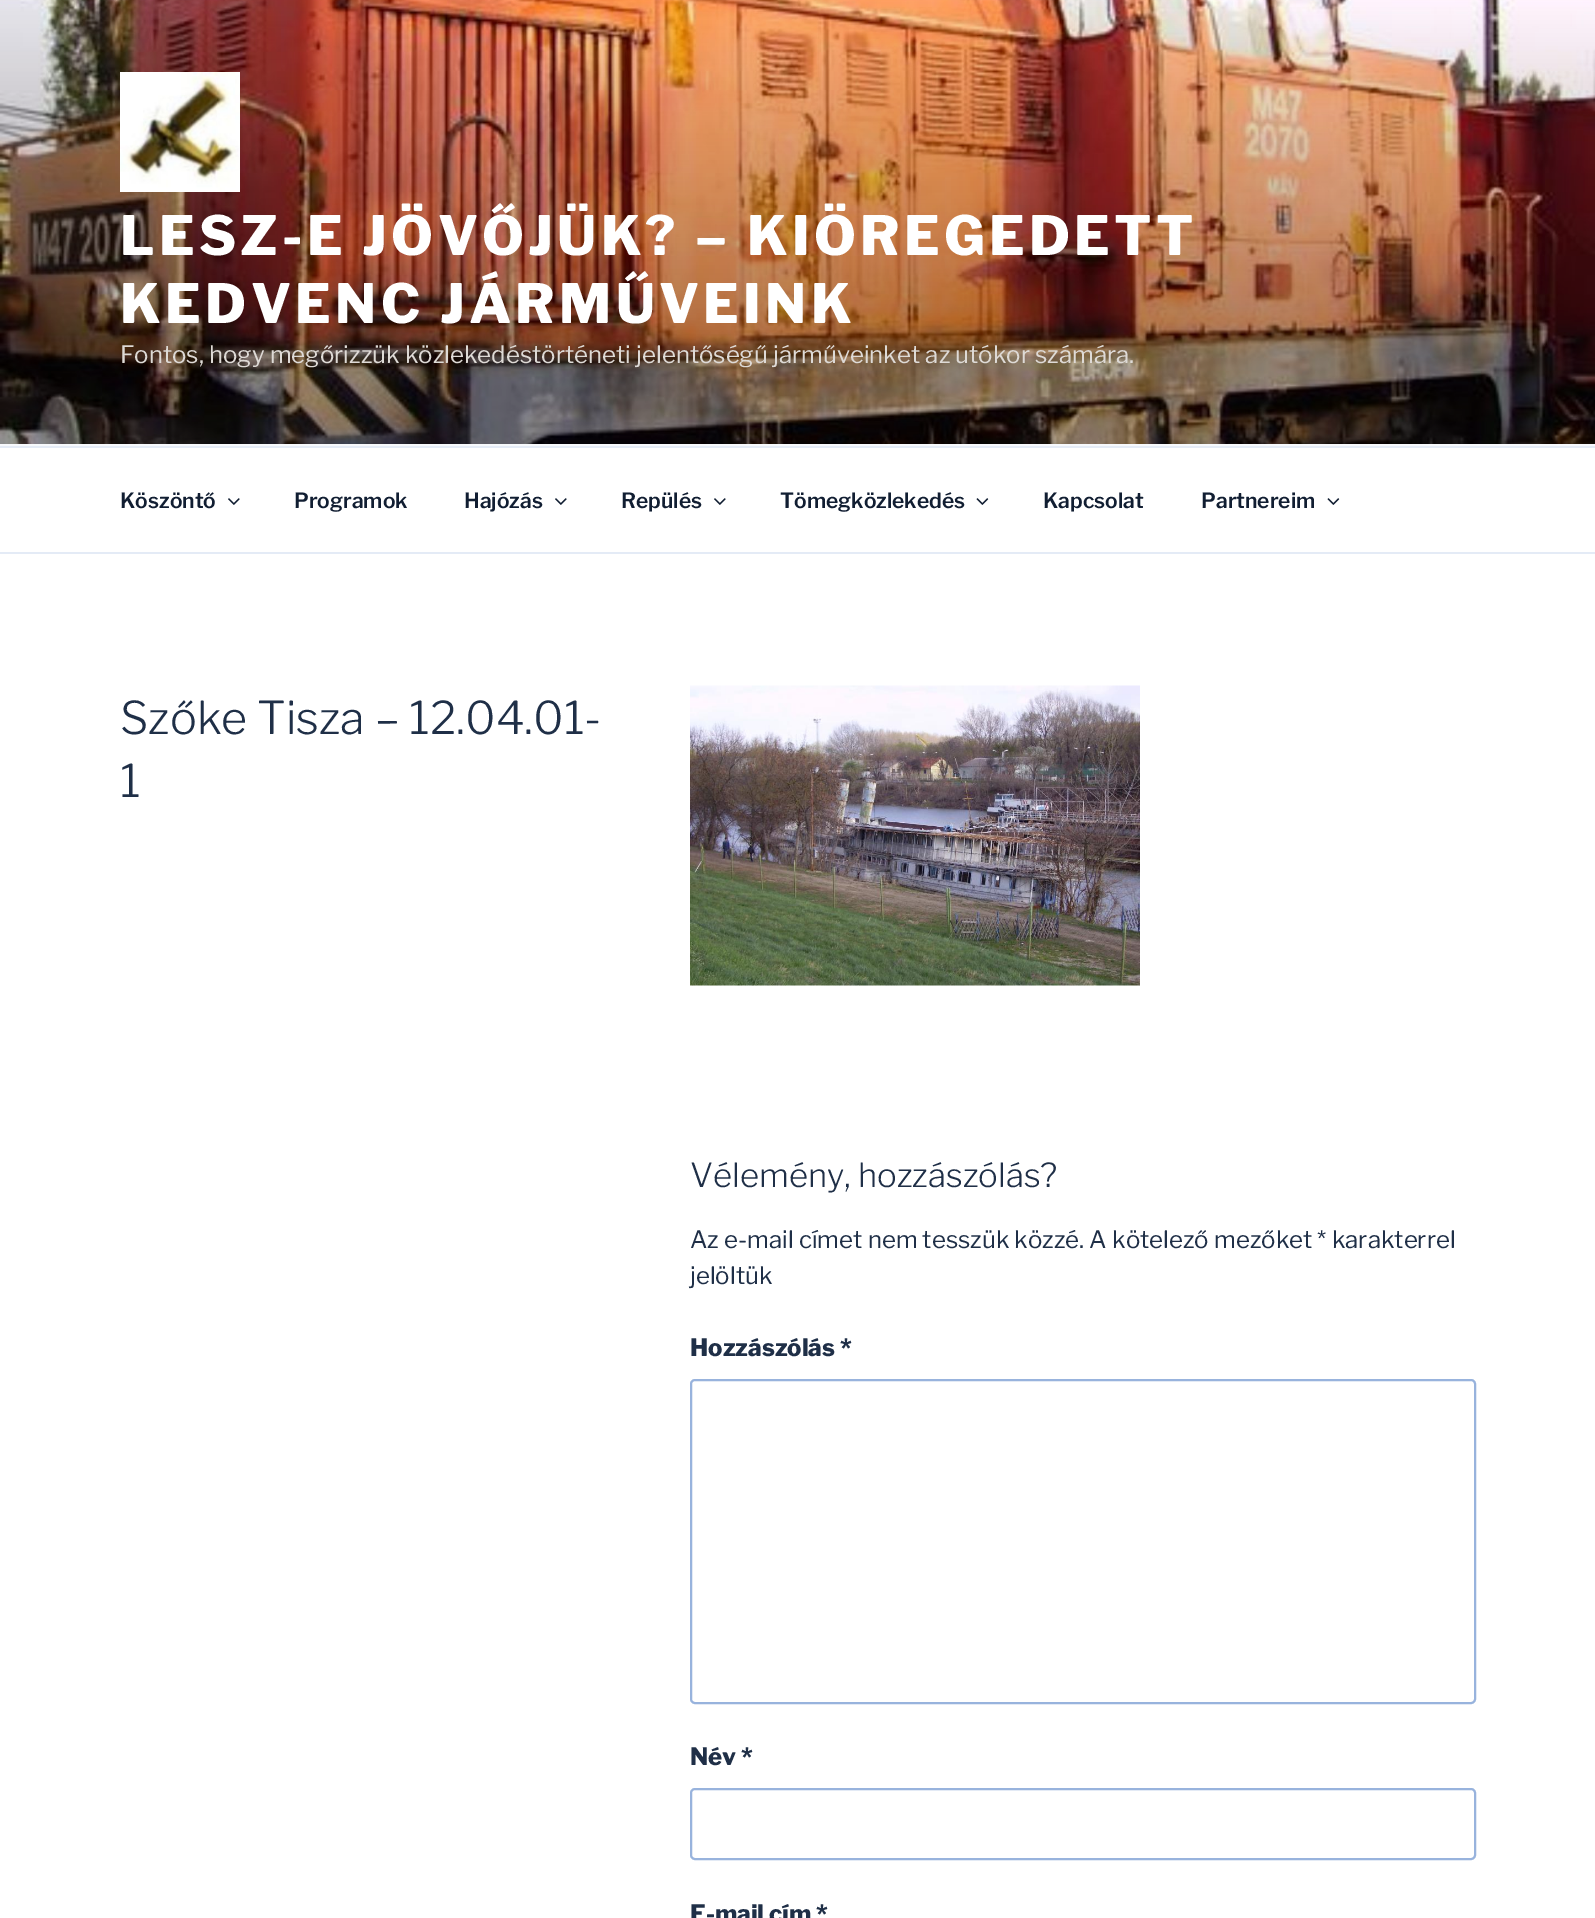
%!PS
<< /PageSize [1595 1918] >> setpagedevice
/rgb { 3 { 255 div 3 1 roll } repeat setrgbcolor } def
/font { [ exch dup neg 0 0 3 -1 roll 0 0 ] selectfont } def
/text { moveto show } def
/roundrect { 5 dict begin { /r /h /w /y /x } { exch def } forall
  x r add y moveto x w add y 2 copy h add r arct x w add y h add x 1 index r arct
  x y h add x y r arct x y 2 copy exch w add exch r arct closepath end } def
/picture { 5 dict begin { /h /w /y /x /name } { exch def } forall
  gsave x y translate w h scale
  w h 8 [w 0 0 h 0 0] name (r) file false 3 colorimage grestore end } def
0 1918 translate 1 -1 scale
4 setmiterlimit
255 255 255 rgb
0 0 1595 1918 rectfill
247 249 252 rgb
0 444 1595 2 rectfill
(img_01.rgb) 0 0 1595 444 picture
(img_02.rgb) 120 72 120 120 picture
228 235 246 rgb
0 446 1595 2 rectfill
0 552 1595 2 rectfill
(img_03.rgb) 228 498 12 7 picture
(img_03.rgb) 555 498 12 7 picture
(img_03.rgb) 714 498 12 7 picture
(img_04.rgb) 976 498 13 7 picture
(img_04.rgb) 1327 498 13 7 picture
(img_05.rgb) 690 685 450 301 picture
152 179 221 rgb
2 setlinewidth
691 1380 784 323 4 roundrect stroke
691 1789 784 70 4 roundrect stroke
/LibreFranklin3-Thin 54 font
255 255 255 rgb
120 255 moveto 4.3 0 (LESZ-E JÖVŐJÜK? – KIÖREGEDETT) ashow
120 323 moveto 4.3 0 (KEDVENC JÁRMŰVEINK) ashow
/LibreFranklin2-Thin 24 font
222 218 214 rgb
(Fontos, hogy megőrizzük közlekedéstörténeti jelentőségű járműveinket az utókor számára.) 120 363 text
/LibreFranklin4-Thin 21 font
17 30 50 rgb
(Köszöntő) 120 508 text
(Programok) 294 508 text
(Hajózás) 464 508 text
(Repülés) 621 508 text
(Tömegközlekedés) 780 508 text
(Kapcsolat) 1043 508 text
(Partnereim) 1201 508 text
/LibreFranklin-Thin 45 font
31 47 71 rgb
(Szőke Tisza – 12.04.01-) 120 734 text
(1) 120 797 text
/LibreFranklin-Thin 33 font
(Vélemény, hozzászólás?) 690 1187 text
/LibreFranklin2-Thin 24 font
(Az e-mail címet nem tesszük közzé. A kötelező mezőket * karakterrel) 690 1248 text
(jelöltük) 690 1284 text
/LibreFranklin3-Thin 24 font
(Hozzászólás *) 690 1356 text
(Név *) 690 1765 text
(E-mail cím *) 690 1922 text
showpage
